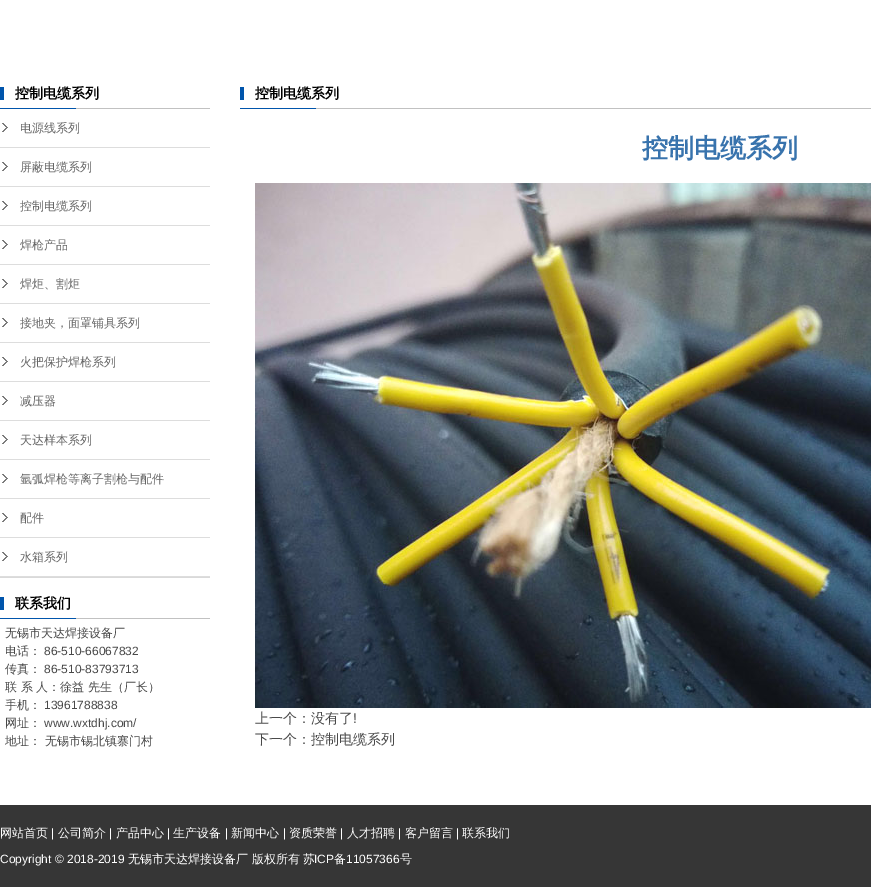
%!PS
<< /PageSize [871 887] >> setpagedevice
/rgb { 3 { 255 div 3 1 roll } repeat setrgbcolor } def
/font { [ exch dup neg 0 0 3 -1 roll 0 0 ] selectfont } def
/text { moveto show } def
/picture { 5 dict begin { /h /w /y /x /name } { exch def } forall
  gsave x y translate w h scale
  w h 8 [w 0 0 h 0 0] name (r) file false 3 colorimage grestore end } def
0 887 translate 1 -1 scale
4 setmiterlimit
255 255 255 rgb
0 0 871 887 rectfill
(img_01.rgb) 0 87 210 22 picture
217 217 217 rgb
0 577 210 1 rectfill
(img_02.rgb) 2 123 6 9 picture
221 221 221 rgb
0 147 210 1 rectfill
(img_02.rgb) 2 162 6 9 picture
0 186 210 1 rectfill
(img_02.rgb) 2 201 6 9 picture
0 225 210 1 rectfill
(img_02.rgb) 2 240 6 9 picture
0 264 210 1 rectfill
(img_02.rgb) 2 279 6 9 picture
0 303 210 1 rectfill
(img_02.rgb) 2 318 6 9 picture
0 342 210 1 rectfill
(img_02.rgb) 2 357 6 9 picture
0 381 210 1 rectfill
(img_02.rgb) 2 396 6 9 picture
0 420 210 1 rectfill
(img_02.rgb) 2 435 6 9 picture
0 459 210 1 rectfill
(img_02.rgb) 2 474 6 9 picture
0 498 210 1 rectfill
(img_02.rgb) 2 513 6 9 picture
0 537 210 1 rectfill
(img_02.rgb) 2 552 6 9 picture
0 576 210 1 rectfill
(img_01.rgb) 0 597 210 22 picture
(img_03.rgb) 240 87 631 22 picture
(img_04.rgb) 255 183 616 525 picture
54 54 54 rgb
0 805 871 82 rectfill
/WenQuanYiZenHei-Bold 14 font
0 0 0 rgb
(控制电缆系列) 15 98 text
/WenQuanYiZenHei-Medium 12 font
102 102 102 rgb
(电源线系列) 20 132 text
(屏蔽电缆系列) 20 171 text
(控制电缆系列) 20 210 text
(焊枪产品) 20 249 text
(焊炬、割炬) 20 288 text
(接地夹，面罩铺具系列) 20 327 text
(火把保护焊枪系列) 20 366 text
(减压器) 20 405 text
(天达样本系列) 20 444 text
(氩弧焊枪等离子割枪与配件) 20 483 text
(配件) 20 522 text
(水箱系列) 20 561 text
/WenQuanYiZenHei-Bold 14 font
0 0 0 rgb
(联系我们) 15 608 text
/WenQuanYiZenHei-Medium 12 font
73 73 73 rgb
(无锡市天达焊接设备厂) 5 637 text
(电话：) 5 655 text
/LiberationSans-Regular 12 font
(86-510-66067832) 44 655 text
/WenQuanYiZenHei-Medium 12 font
(传真：) 5 673 text
/LiberationSans-Regular 12 font
(86-510-83793713) 44 673 text
/WenQuanYiZenHei-Medium 12 font
(联 系 人：徐益 先生（厂长）) 5 691 text
(手机：) 5 709 text
/LiberationSans-Regular 12 font
(13961788838) 44 709 text
/WenQuanYiZenHei-Medium 12 font
(网址：) 5 727 text
/LiberationSans-Regular 12 font
(www.wxtdhj.com/) 44 727 text
/WenQuanYiZenHei-Medium 12 font
(地址： 无锡市锡北镇寨门村) 5 745 text
/WenQuanYiZenHei-Bold 14 font
0 0 0 rgb
(控制电缆系列) 255 98 text
/WenQuanYiZenHei-Bold 26 font
56 115 173 rgb
(控制电缆系列) 642 157 text
/WenQuanYiZenHei-Medium 14 font
73 73 73 rgb
(上一个：没有了) 255 723 text
/LiberationSans-Regular 14 font
(!) 353 723 text
/WenQuanYiZenHei-Medium 14 font
(下一个：控制电缆系列) 255 744 text
/WenQuanYiZenHei-Medium 12 font
255 255 255 rgb
(网站首页) 0 837 text
/LiberationSans-Regular 12 font
(|) 51 837 text
/WenQuanYiZenHei-Medium 12 font
(公司简介) 58 837 text
/LiberationSans-Regular 12 font
(|) 109 837 text
/WenQuanYiZenHei-Medium 12 font
(产品中心) 116 837 text
/LiberationSans-Regular 12 font
(|) 167 837 text
/WenQuanYiZenHei-Medium 12 font
(生产设备) 173 837 text
/LiberationSans-Regular 12 font
(|) 225 837 text
/WenQuanYiZenHei-Medium 12 font
(新闻中心) 231 837 text
/LiberationSans-Regular 12 font
(|) 283 837 text
/WenQuanYiZenHei-Medium 12 font
(资质荣誉) 289 837 text
/LiberationSans-Regular 12 font
(|) 340 837 text
/WenQuanYiZenHei-Medium 12 font
(人才招聘) 347 837 text
/LiberationSans-Regular 12 font
(|) 398 837 text
/WenQuanYiZenHei-Medium 12 font
(客户留言) 405 837 text
/LiberationSans-Regular 12 font
(|) 456 837 text
/WenQuanYiZenHei-Medium 12 font
(联系我们) 462 837 text
/LiberationSans-Regular 12 font
(Copyright © 2018-2019) 0 863 text
/WenQuanYiZenHei-Medium 12 font
(无锡市天达焊接设备厂 版权所有 苏) 128 863 text
/LiberationSans-Regular 12 font
(ICP) 314 863 text
/WenQuanYiZenHei-Medium 12 font
(备) 334 863 text
/LiberationSans-Regular 12 font
(11057366) 346 863 text
/WenQuanYiZenHei-Medium 12 font
(号) 400 863 text
showpage
